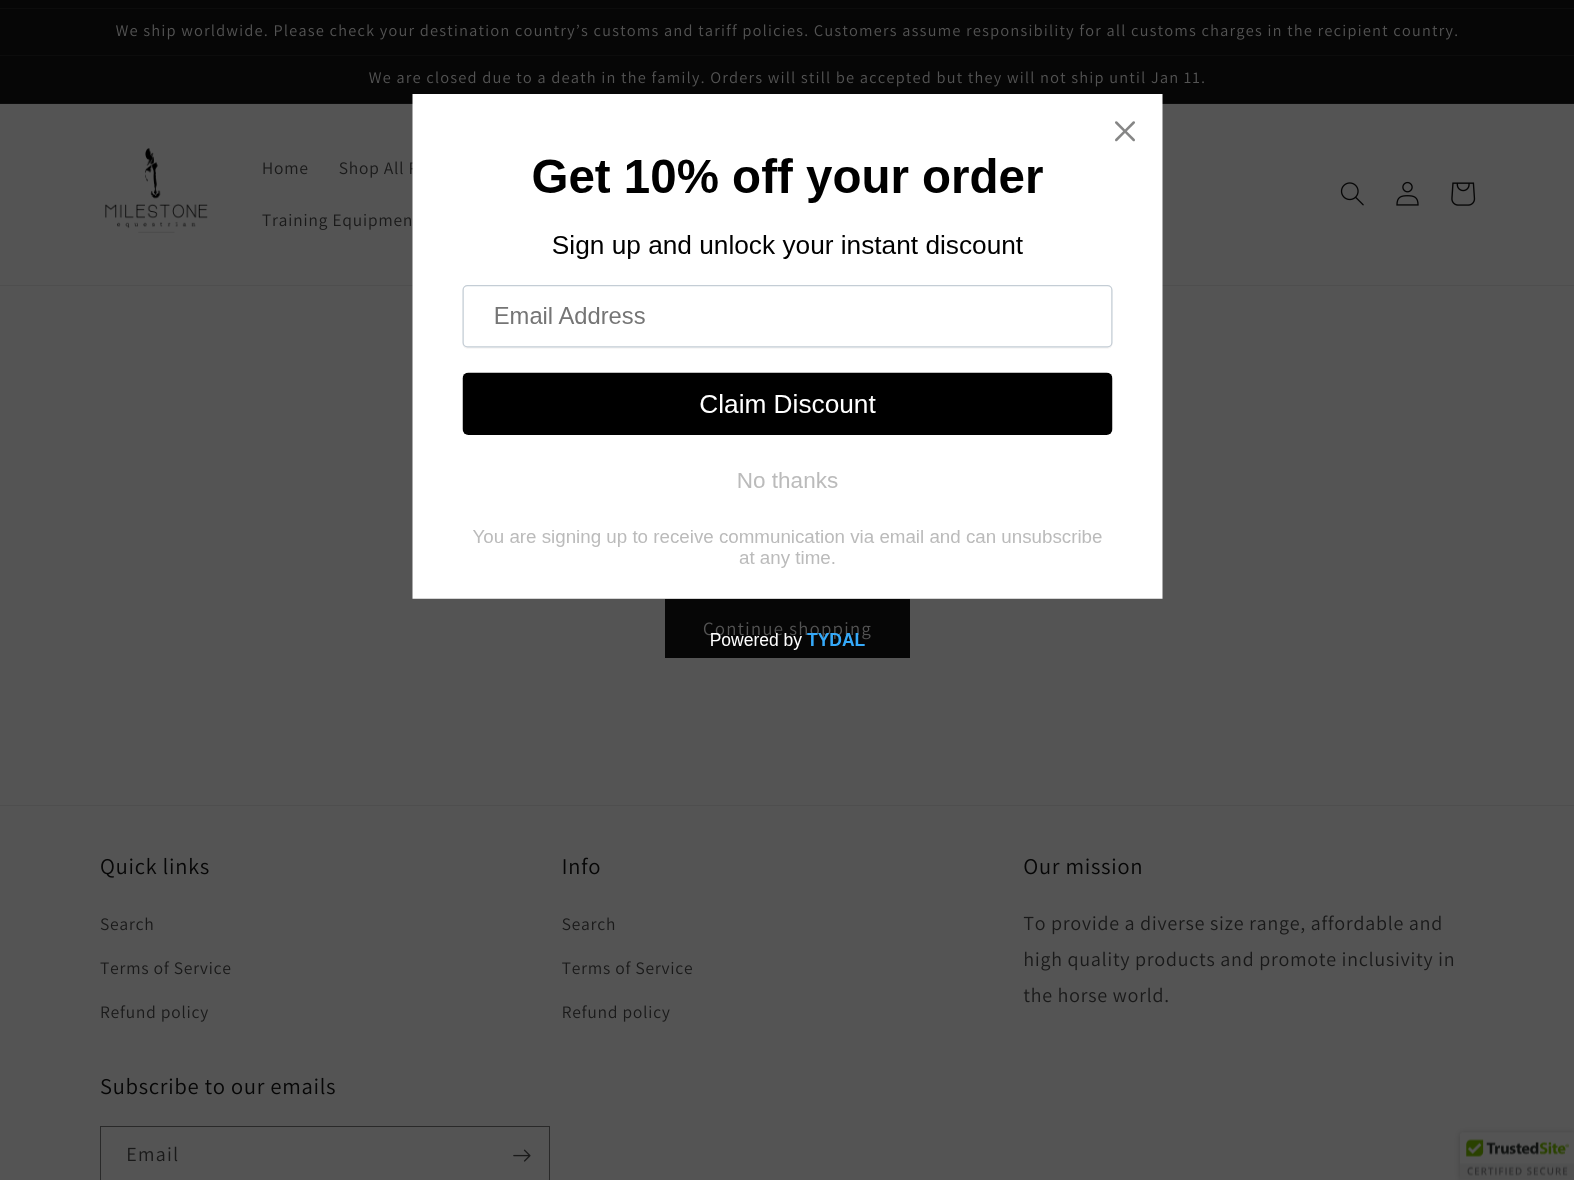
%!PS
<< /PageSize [1574 1180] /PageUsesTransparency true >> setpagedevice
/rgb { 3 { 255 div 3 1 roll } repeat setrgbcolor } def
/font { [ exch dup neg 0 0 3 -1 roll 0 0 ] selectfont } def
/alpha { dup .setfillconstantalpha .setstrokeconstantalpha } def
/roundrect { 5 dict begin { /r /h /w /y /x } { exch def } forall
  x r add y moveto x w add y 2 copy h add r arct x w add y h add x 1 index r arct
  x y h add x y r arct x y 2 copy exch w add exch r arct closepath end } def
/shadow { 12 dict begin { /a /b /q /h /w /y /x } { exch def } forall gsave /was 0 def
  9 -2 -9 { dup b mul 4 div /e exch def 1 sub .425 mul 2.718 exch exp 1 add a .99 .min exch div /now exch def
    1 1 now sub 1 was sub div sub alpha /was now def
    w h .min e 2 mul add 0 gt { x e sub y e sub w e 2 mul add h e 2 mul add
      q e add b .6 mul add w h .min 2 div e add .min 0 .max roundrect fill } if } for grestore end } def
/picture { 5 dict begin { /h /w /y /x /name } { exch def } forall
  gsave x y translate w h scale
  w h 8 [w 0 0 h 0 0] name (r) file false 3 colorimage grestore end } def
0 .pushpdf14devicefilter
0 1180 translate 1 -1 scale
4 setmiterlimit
255 255 255 rgb
0 0 1574 1180 rectfill
18 18 18 rgb
0 0 1574 8 rectfill
37 37 37 rgb
0 8 1574 1 rectfill
18 18 18 rgb
0 9 1574 46 rectfill
37 37 37 rgb
0 55 1574 1 rectfill
18 18 18 rgb
0 56 1574 47 rectfill
37 37 37 rgb
0 103 1574 1 rectfill
236 236 236 rgb
0 285 1574 1 rectfill
(img_02.rgb) 105 148 103 85 picture
(img_03.rgb) 1340 182 24 24 picture
(img_04.rgb) 1396 181 23 25 picture
(img_05.rgb) 1451 182 25 24 picture
18 18 18 rgb
665 599 245 59 rectfill
236 236 236 rgb
0 805 1574 1 rectfill
125 125 125 rgb
100.5 1126.5 449 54 rectstroke
(img_06.rgb) 513 1149 18 13 picture
0 0 0 rgb
1460 1133 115 47 2.5 3 0.2 shadow
(img_07.rgb) 1460 1132 114 48 picture
/Assistant-Regular 16.25 font
255 255 255 rgb
116 36 moveto 1.25 0 (We ship worldwide. Please check your destination country’s customs and tariff policies. Customers assume responsibility for all customs charges in the recipient country.) ashow
369 83 moveto 1.25 0 (We are closed due to a death in the family. Orders will still be accepted but they will not ship until Jan 11.) ashow
/Assistant-Regular 17.5 font
77 77 77 rgb
262 174 moveto 0.75 0 (Home) ashow
339 174 moveto 0.75 0 (Shop All P) ashow
262 226 moveto 0.75 0 (Training Equipmen) ashow
/Assistant-Regular 18.75 font
255 255 255 rgb
703 635 moveto 1.25 0 (Continue shopping) ashow
/Assistant-Regular 22.5 font
18 18 18 rgb
100 874 moveto 0.75 0 (Quick links) ashow
/Assistant-Regular 17.5 font
77 77 77 rgb
100 930 moveto 0.75 0 (Search) ashow
100 974 moveto 0.75 0 (Terms of Service) ashow
100 1018 moveto 0.75 0 (Refund policy) ashow
/Assistant-Regular 22.5 font
18 18 18 rgb
562 874 moveto 0.75 0 (Info) ashow
/Assistant-Regular 17.5 font
77 77 77 rgb
562 930 moveto 0.75 0 (Search) ashow
562 974 moveto 0.75 0 (Terms of Service) ashow
562 1018 moveto 0.75 0 (Refund policy) ashow
/Assistant-Regular 22.5 font
18 18 18 rgb
1023 874 moveto 0.75 0 (Our mission) ashow
/Assistant-Regular 20 font
77 77 77 rgb
1023 930 moveto 0.75 0 (To provide a diverse size range, affordable and) ashow
1023 966 moveto 0.75 0 (high quality products and promote inclusivity in) ashow
1023 1002 moveto 0.75 0 (the horse world.) ashow
/Assistant-Regular 22.5 font
18 18 18 rgb
100 1094 moveto 0.75 0 (Subscribe to our emails) ashow
/Assistant-Regular 20 font
77 77 77 rgb
126 1161 moveto 1.25 0 (Email) ashow
(img_01.rgb) 0 0 1574 1180 picture
.poppdf14devicefilter showpage
